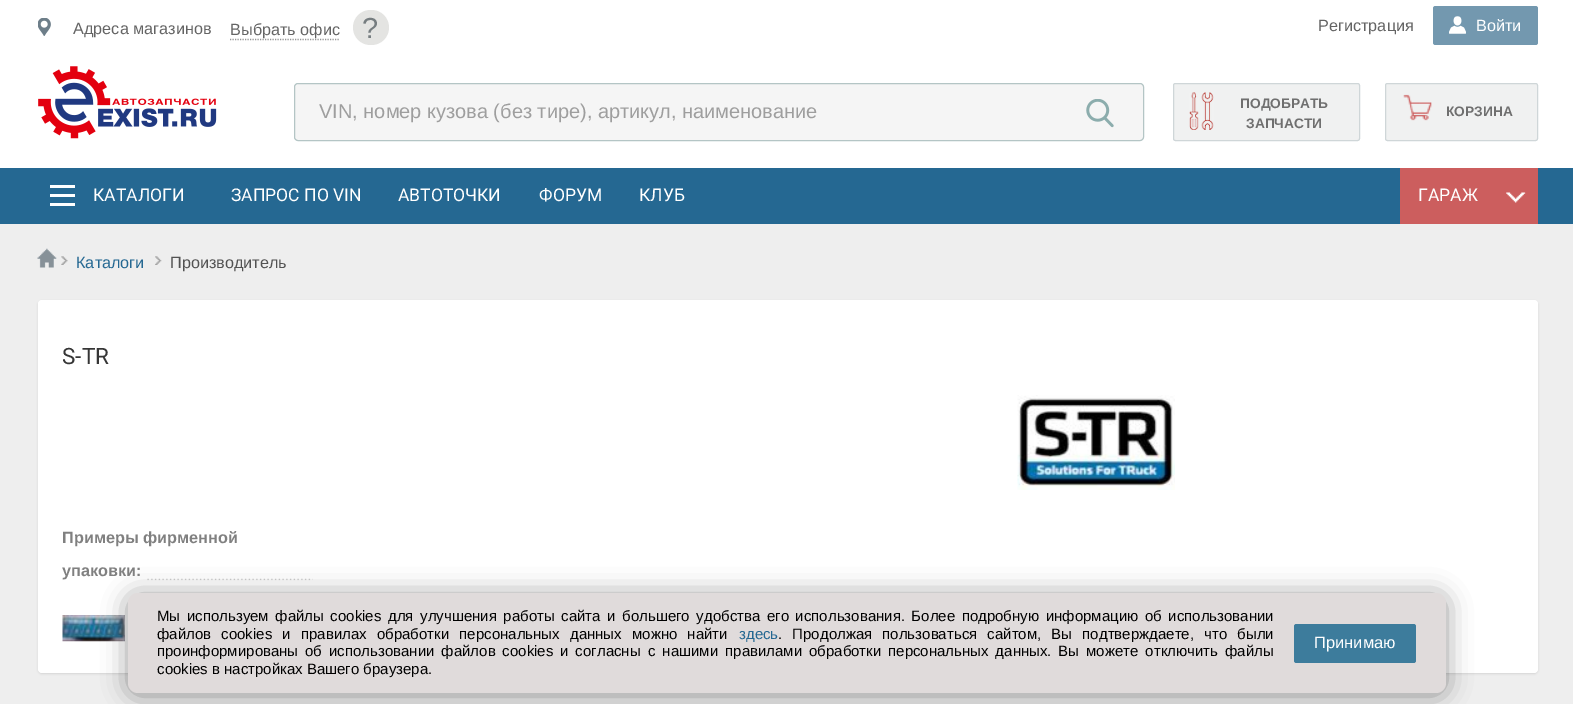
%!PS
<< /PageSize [1573 704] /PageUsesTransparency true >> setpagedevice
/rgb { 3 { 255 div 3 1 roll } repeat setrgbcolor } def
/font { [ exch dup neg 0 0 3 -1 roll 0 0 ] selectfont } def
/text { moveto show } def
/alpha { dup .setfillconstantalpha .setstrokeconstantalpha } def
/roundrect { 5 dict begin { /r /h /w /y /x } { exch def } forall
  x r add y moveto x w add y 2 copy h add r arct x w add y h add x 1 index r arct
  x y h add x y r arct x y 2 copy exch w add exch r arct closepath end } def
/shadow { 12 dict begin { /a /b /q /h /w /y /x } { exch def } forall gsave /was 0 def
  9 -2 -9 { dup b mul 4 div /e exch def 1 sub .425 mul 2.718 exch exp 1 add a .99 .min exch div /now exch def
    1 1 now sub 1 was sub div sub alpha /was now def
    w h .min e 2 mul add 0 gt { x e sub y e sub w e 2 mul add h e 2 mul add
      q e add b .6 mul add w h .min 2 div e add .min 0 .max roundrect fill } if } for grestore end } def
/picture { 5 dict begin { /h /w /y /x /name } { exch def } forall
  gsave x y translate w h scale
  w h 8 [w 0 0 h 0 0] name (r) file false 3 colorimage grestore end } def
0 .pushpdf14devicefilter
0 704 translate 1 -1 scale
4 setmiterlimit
238 238 238 rgb
0 0 1573 704 rectfill
255 255 255 rgb
0 0 1573 168 rectfill
(img_01.rgb) 38 18 13 18 picture
150 150 150 rgb
1.2 setlinewidth
[1.25 1.25] 0 setdash
230 39.5 moveto 110 0 rlineto stroke
228 228 226 rgb
353 10 36 35 17.5 roundrect fill
115 152 175 rgb
1433 6 105 39 2.5 roundrect fill
(img_02.rgb) 1449 16 17 18 picture
(img_03.rgb) 38 66 179 73 picture
245 245 245 rgb
294.5 83.5 849 57 3.5 roundrect gsave fill grestore
180 197 197 rgb
1 setlinewidth
[] 0 setdash
stroke
(img_04.rgb) 1086 99 28 29 picture
240 241 241 rgb
1173 83 187 58 2.5 roundrect fill
(img_05.rgb) 1189 92 25 38 picture
207 214 216 rgb
1173.5 83.5 186 57 2 roundrect stroke
240 241 241 rgb
1385 83 153 58 2.5 roundrect fill
(img_06.rgb) 1403 94 29 27 picture
207 214 216 rgb
1385.5 83.5 152 57 2 roundrect stroke
37 104 146 rgb
0 168 1573 56 rectfill
255 255 255 rgb
50 194 25 3 rectfill
50 185 25 3 rectfill
50 203 25 3 rectfill
204 94 94 rgb
1400 168 138 56 rectfill
(img_07.rgb) 1506 192 20 11 picture
(img_08.rgb) 37 248 20 20 picture
(img_09.rgb) 61 256 7 9 picture
(img_10.rgb) 155 256 7 9 picture
0 0 0 rgb
38 301 1500 373 4 1 0.1 shadow
255 255 255 rgb
38 300 1500 373 4 roundrect fill
(img_11.rgb) 1017 395 158 95 picture
(img_12.rgb) 62 578 251 3 picture
64 578 82 3 rectfill
(img_13.rgb) 62 615 63 27 picture
0 0 0 rgb
128 595 1318 100 10 12.5 0.4 shadow
224 219 219 rgb
128 593 1318 100 10 roundrect fill
61 124 156 rgb
1294 624 122 39 2.5 roundrect fill
/LiberationSans-Regular 16.25 font
100 100 100 rgb
(Адреса магазинов) 73 34 text
(Выбрать офис) 230 35 text
/LiberationSans-Regular 29 font
118 125 128 rgb
(?) 362 38 text
/LiberationSans-Regular 16.25 font
100 100 100 rgb
(Регистрация) 1318 31 text
255 255 255 rgb
(Войти) 1476 31 text
/LiberationSans-Regular 20 font
158 158 158 rgb
(VIN, номер кузова \(без тире\), артикул, наименование) 319 118 text
/LiberationSans-Bold 13.75 font
111 111 111 rgb
(ПОДОБРАТЬ) 1240 108 text
(ЗАПЧАСТИ) 1246 128 text
(КОРЗИНА) 1446 116 text
/Roboto-Regular 17.5 font
255 255 255 rgb
(КАТАЛОГИ) 93 201 text
(ЗАПРОС ПО VIN) 231 201 text
(АВТОТОЧКИ) 398 201 text
(ФОРУМ) 539 201 text
(КЛУБ) 639 201 text
(ГАРАЖ) 1418 201 text
/LiberationSans-Regular 16.25 font
37 104 146 rgb
(Каталоги) 76 268 text
82 82 82 rgb
(Производитель) 170 268 text
/Roboto-Regular 22.5 font
54 54 54 rgb
(S-TR) 62 364 text
/LiberationSans-Bold 16.25 font
128 128 128 rgb
(Примеры фирменной) 62 543 text
(упаковки:) 62 576 text
/LiberationSans-Regular 15 font
0 0 0 rgb
157 621 moveto 2.4 0 32 (Мы используем файлы cookies для улучшения работы сайта и большего удобства его использования. Более подробную информацию об использовании) widthshow
157 639 moveto 6 0 32 (файлов cookies и правилах обработки персональных данных можно найти) widthshow
37 104 146 rgb
(здесь) 739 639 text
0 0 0 rgb
778 639 moveto 6 0 32 (. Продолжая пользоваться сайтом, Вы подтверждаете, что были) widthshow
157 656 moveto 2.75 0 32 (проинформированы об использовании файлов cookies и согласны) widthshow
648 656 moveto 2.75 0 32 (с нашими правилами обработки персональных данных. Вы можете отключить файлы) widthshow
(cookies в настройках Вашего браузера.) 157 674 text
/LiberationSans-Regular 16.5 font
255 255 255 rgb
(Принимаю) 1314 648 text
.poppdf14devicefilter showpage
